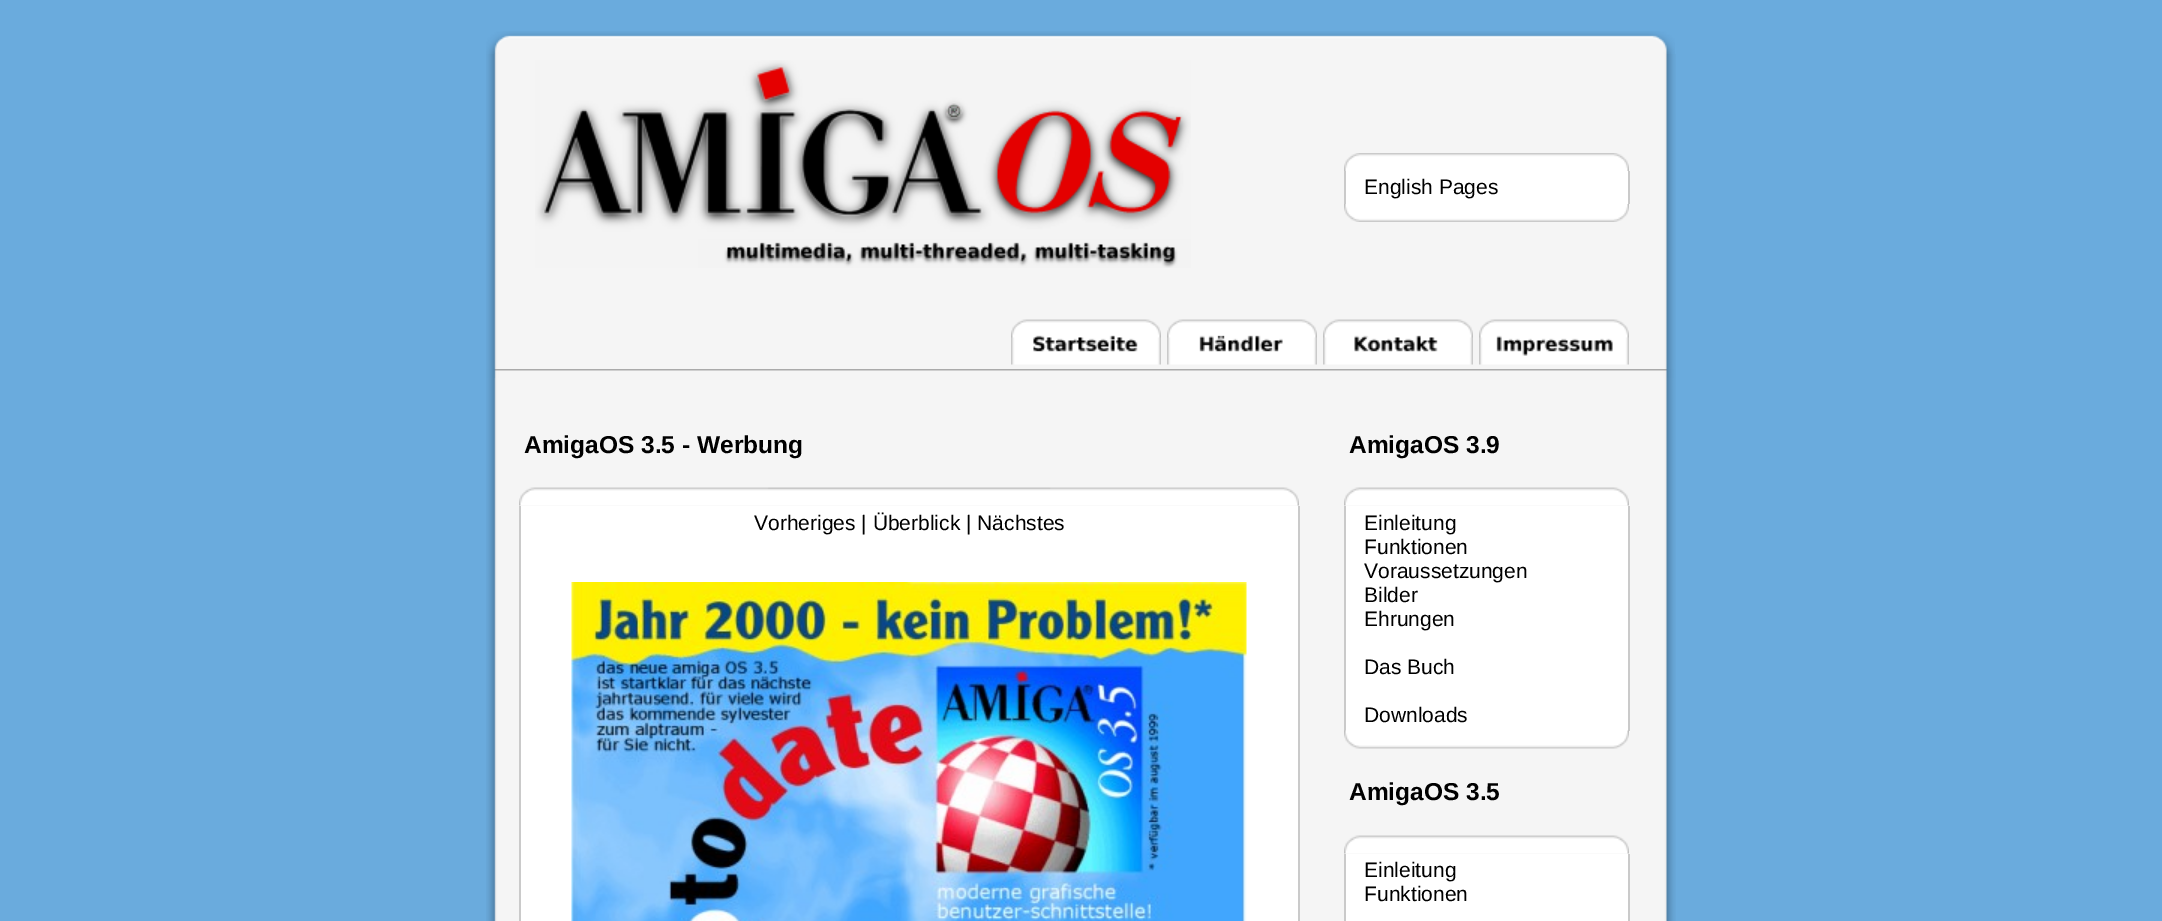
%!PS
<< /PageSize [2162 921] >> setpagedevice
/rgb { 3 { 255 div 3 1 roll } repeat setrgbcolor } def
/font { [ exch dup neg 0 0 3 -1 roll 0 0 ] selectfont } def
/text { moveto show } def
/picture { 5 dict begin { /h /w /y /x /name } { exch def } forall
  gsave x y translate w h scale
  w h 8 [w 0 0 h 0 0] name (r) file false 3 colorimage grestore end } def
0 921 translate 1 -1 scale
4 setmiterlimit
106 171 221 rgb
0 0 2162 921 rectfill
(img_01.rgb) 486 31 1189 23 picture
(img_02.rgb) 486 54 1190 315 picture
(img_03.rgb) 535 60 656 208 picture
(img_04.rgb) 1344 153 285 18 picture
202 202 202 rgb
1344 171 2 33 rectfill
255 255 255 rgb
1346 171 282 33 rectfill
202 202 202 rgb
1628 171 2 33 rectfill
(img_05.rgb) 1344 204 285 18 picture
(img_06.rgb) 1011 319 150 46 picture
(img_07.rgb) 1167 319 150 46 picture
(img_08.rgb) 1323 319 150 46 picture
(img_09.rgb) 1479 319 150 46 picture
(img_10.rgb) 486 369 1190 9 picture
(img_11.rgb) 486 378 1190 543 picture
(img_12.rgb) 519 487 780 19 picture
519 506 2 415 rectfill
255 255 255 rgb
521 506 777 415 rectfill
202 202 202 rgb
1298 506 2 415 rectfill
(img_13.rgb) 571 582 676 339 picture
(img_14.rgb) 1344 487 285 19 picture
1344 506 2 225 rectfill
255 255 255 rgb
1346 506 282 225 rectfill
202 202 202 rgb
1628 506 2 225 rectfill
(img_15.rgb) 1344 730 285 19 picture
(img_14.rgb) 1344 835 285 19 picture
1344 854 2 67 rectfill
255 255 255 rgb
1346 854 282 67 rectfill
202 202 202 rgb
1628 854 2 67 rectfill
/LiberationSans-Regular 21 font
0 0 0 rgb
(English Pages) 1364 194 text
/LiberationSans-Bold 24.5 font
(AmigaOS 3.5 - Werbung) 524 453 text
/LiberationSans-Regular 21 font
(Vorheriges | Überblick | Nächstes) 754 530 text
/LiberationSans-Bold 24.5 font
(AmigaOS 3.9) 1349 453 text
/LiberationSans-Regular 21 font
(Einleitung) 1364 530 text
(Funktionen) 1364 554 text
(Voraussetzungen) 1364 578 text
(Bilder) 1364 602 text
(Ehrungen) 1364 626 text
(Das Buch) 1364 674 text
(Downloads) 1364 722 text
/LiberationSans-Bold 24.5 font
(AmigaOS 3.5) 1349 800 text
/LiberationSans-Regular 21 font
(Einleitung) 1364 877 text
(Funktionen) 1364 901 text
showpage
